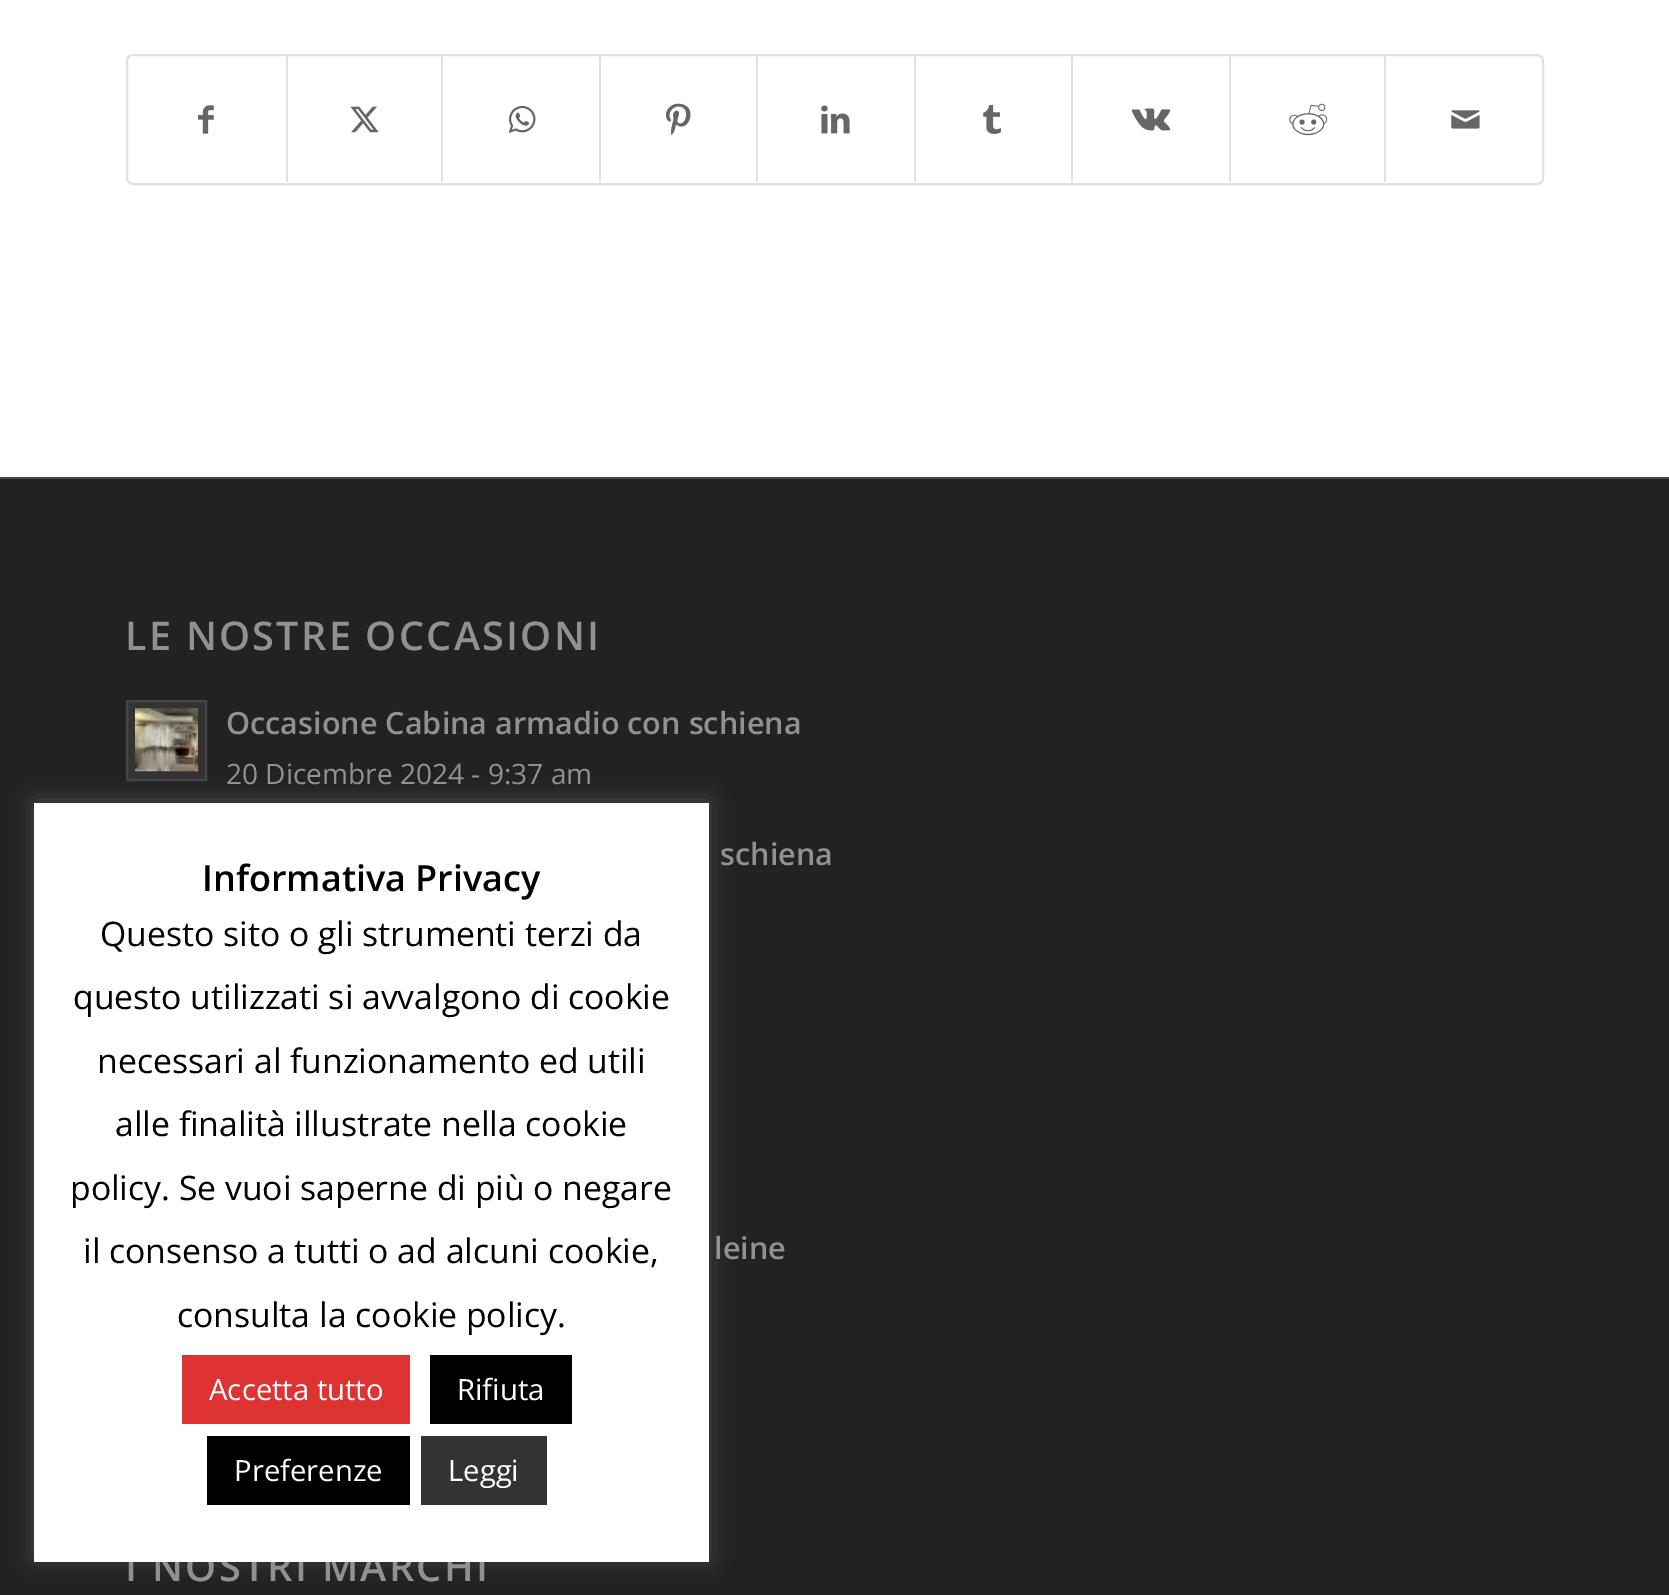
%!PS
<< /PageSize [1669 1595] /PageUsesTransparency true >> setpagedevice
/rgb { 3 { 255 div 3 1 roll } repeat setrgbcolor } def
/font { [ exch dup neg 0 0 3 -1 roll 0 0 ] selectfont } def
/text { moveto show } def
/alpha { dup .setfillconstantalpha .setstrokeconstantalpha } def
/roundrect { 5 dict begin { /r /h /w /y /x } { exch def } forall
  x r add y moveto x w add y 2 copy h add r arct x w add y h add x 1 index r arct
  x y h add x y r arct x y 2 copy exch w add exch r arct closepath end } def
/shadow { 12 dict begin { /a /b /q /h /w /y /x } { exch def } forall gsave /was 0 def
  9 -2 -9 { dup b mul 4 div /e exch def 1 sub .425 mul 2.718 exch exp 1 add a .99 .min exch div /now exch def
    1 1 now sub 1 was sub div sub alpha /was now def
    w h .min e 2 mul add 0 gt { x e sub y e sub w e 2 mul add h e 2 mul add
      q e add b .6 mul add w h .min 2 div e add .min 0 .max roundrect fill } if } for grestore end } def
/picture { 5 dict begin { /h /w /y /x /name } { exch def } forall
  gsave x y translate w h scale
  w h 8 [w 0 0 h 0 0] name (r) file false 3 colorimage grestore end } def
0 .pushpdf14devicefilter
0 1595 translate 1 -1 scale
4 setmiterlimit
255 255 255 rgb
0 0 1669 1595 rectfill
225 225 225 rgb
2 setlinewidth
127 55 1416 129 6 roundrect stroke
(img_01.rgb) 198 105 16 29 picture
286 56 2 126 rectfill
(img_02.rgb) 350 106 29 27 picture
441 56 2 126 rectfill
(img_03.rgb) 508 105 28 28 picture
599 56 2 126 rectfill
(img_04.rgb) 666 103 25 33 picture
756 56 2 126 rectfill
(img_05.rgb) 821 105 29 29 picture
914 56 2 126 rectfill
(img_06.rgb) 983 105 18 29 picture
1071 56 2 126 rectfill
(img_07.rgb) 1131 108 40 23 picture
1229 56 2 126 rectfill
(img_08.rgb) 1289 103 39 33 picture
1384 56 2 126 rectfill
(img_09.rgb) 1451 110 29 19 picture
34 34 34 rgb
0 479 1669 1116 rectfill
68 68 68 rgb
0 477 1669 2 rectfill
51 51 51 rgb
127 701 moveto 79 0 rlineto 0 79 rlineto -79 0 rlineto closepath gsave fill grestore
68 68 68 rgb
stroke
(img_10.rgb) 135 708 63 64 picture
172 171 171 rgb
34 801 675 758 0 11 0.3 shadow
/OpenSans-SemiBold 39.6 font
145 145 145 rgb
125 650 moveto 2.25 0 (LE NOSTRE OCCASIONI) ashow
/OpenSans-SemiBold 30.6 font
(Occasione Cabina armadio con schiena) 226 734 text
/OpenSans-Regular 28.1 font
(20 Dicembre 2024 - 9:37 am) 226 784 text
/OpenSans-SemiBold 30.6 font
(schiena) 720 865 text
(leine) 714 1259 text
/OpenSans-SemiBold 39.6 font
125 1581 moveto 2.25 0 (I NOSTRI MARCHI) ashow
255 255 255 rgb
34 803 675 759 rectfill
/OpenSans-SemiBold 36 font
0 0 0 rgb
(Informativa Privacy) 202 891 text
/OpenSans-Regular 33.75 font
(Questo sito o gli strumenti terzi da) 100 946 text
(questo utilizzati si avvalgono di cookie) 73 1009 text
(necessari al funzionamento ed utili) 97 1073 text
(alle finalità illustrate nella cookie) 115 1136 text
(policy. Se vuoi saperne di più o negare) 70 1200 text
(il consenso a tutti o ad alcuni cookie,) 83 1263 text
(consulta la cookie policy.) 177 1327 text
221 51 51 rgb
182 1355 228 69 rectfill
/OpenSans-Regular 29.25 font
255 255 255 rgb
(Accetta tutto) 209 1400 text
0 0 0 rgb
430 1355 142 69 rectfill
255 255 255 rgb
(Rifiuta) 457 1400 text
0 0 0 rgb
207 1436 203 69 rectfill
255 255 255 rgb
(Preferenze) 234 1481 text
51 51 51 rgb
421 1436 126 69 rectfill
255 255 255 rgb
(Leggi) 448 1481 text
.poppdf14devicefilter showpage
